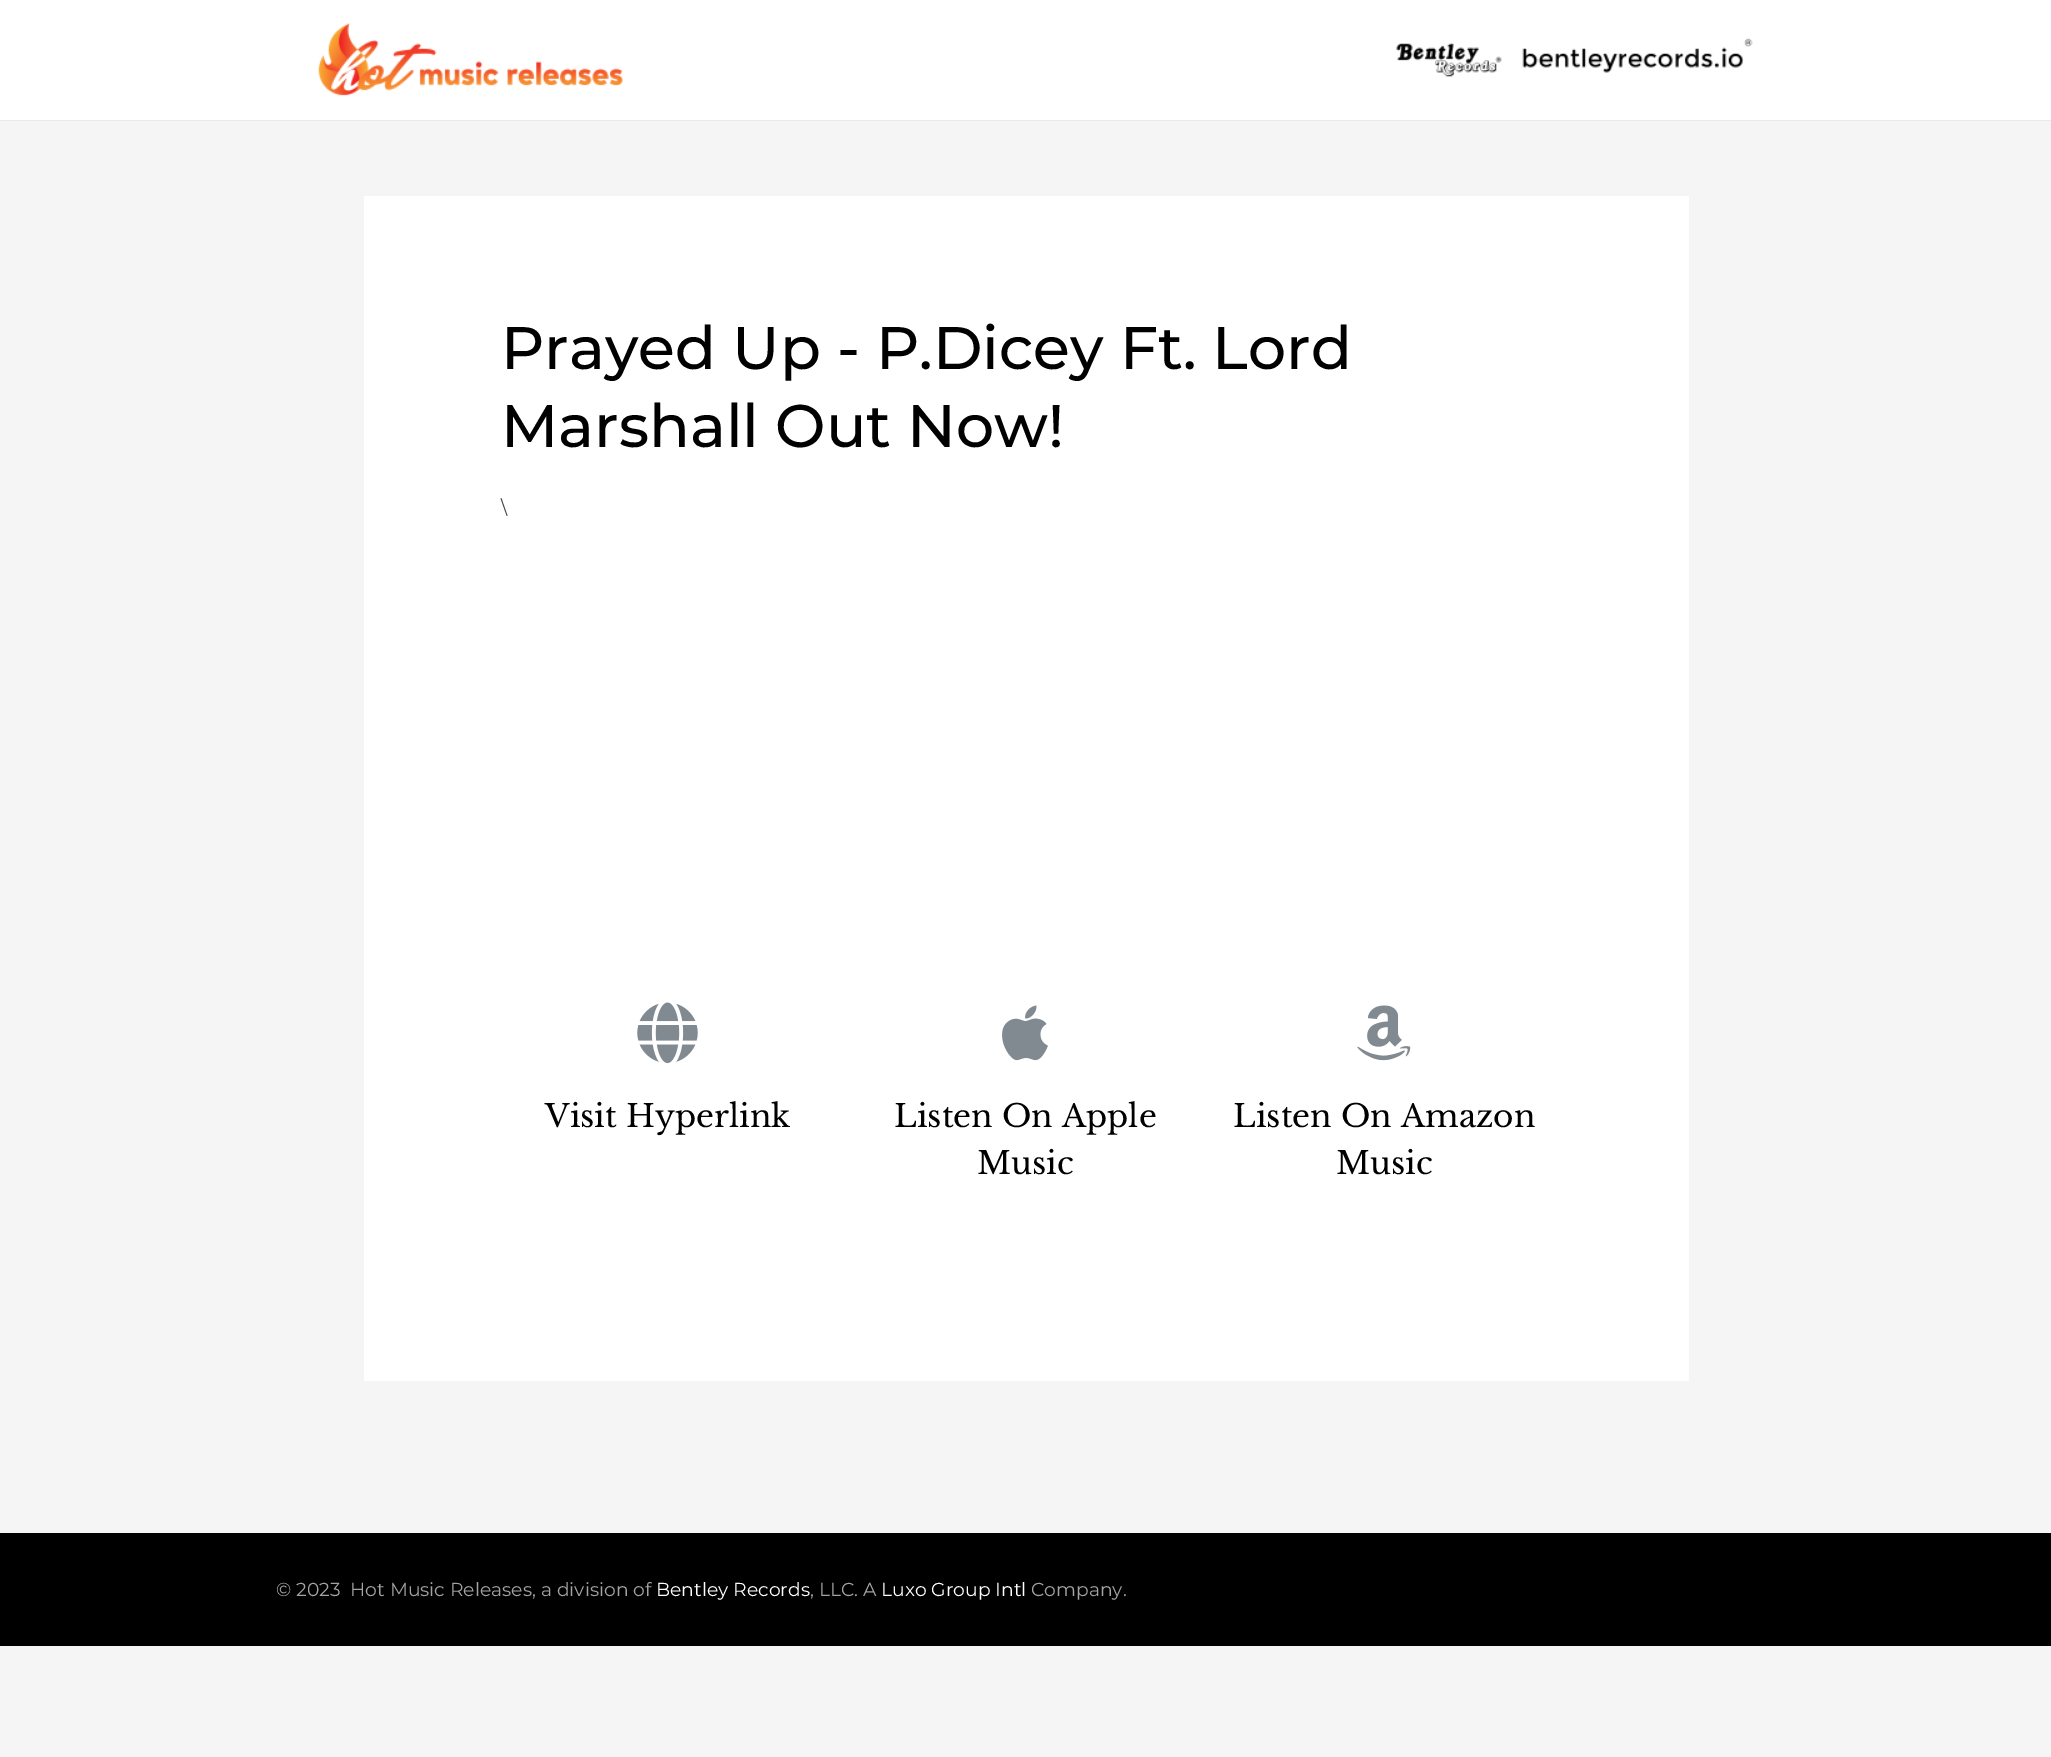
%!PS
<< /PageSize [2051 1757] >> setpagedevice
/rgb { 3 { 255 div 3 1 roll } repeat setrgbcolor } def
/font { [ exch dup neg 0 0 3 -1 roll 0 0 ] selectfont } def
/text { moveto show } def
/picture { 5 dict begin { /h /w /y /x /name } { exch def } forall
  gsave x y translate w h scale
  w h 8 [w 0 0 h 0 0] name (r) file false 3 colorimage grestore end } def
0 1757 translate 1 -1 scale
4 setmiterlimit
245 245 245 rgb
0 0 2051 1757 rectfill
255 255 255 rgb
0 0 2051 120 rectfill
234 234 234 rgb
0 120 2051 1 rectfill
(img_01.rgb) 318 23 305 73 picture
(img_02.rgb) 1396 38 357 39 picture
255 255 255 rgb
364 196 1325 1185 rectfill
(img_03.rgb) 637 1002 61 62 picture
(img_04.rgb) 1002 1005 46 56 picture
(img_05.rgb) 1357 1005 54 56 picture
0 0 0 rgb
0 1533 2051 113 rectfill
/Montserrat-Medium 60 font
(Prayed Up - P.Dicey Ft. Lord) 501 369 text
(Marshall Out Now!) 501 447 text
/Montserrat-Regular 18.75 font
69 69 69 rgb
(\\) 501 514 text
/LibreBaskerville-Regular 31.25 font
0 0 0 rgb
(Visit Hyperlink) 545 1127 text
(Listen On Apple) 894 1127 text
(Music) 977 1174 text
(Listen On Amazon) 1233 1127 text
(Music) 1336 1174 text
/Montserrat-Regular 18.75 font
163 163 163 rgb
(© 2023  Hot Music Releases, a division of) 276 1596 text
255 255 255 rgb
(Bentley Records) 656 1596 text
163 163 163 rgb
(, LLC. A) 810 1596 text
255 255 255 rgb
(Luxo Group Intl) 881 1596 text
163 163 163 rgb
(Company.) 1031 1596 text
showpage
